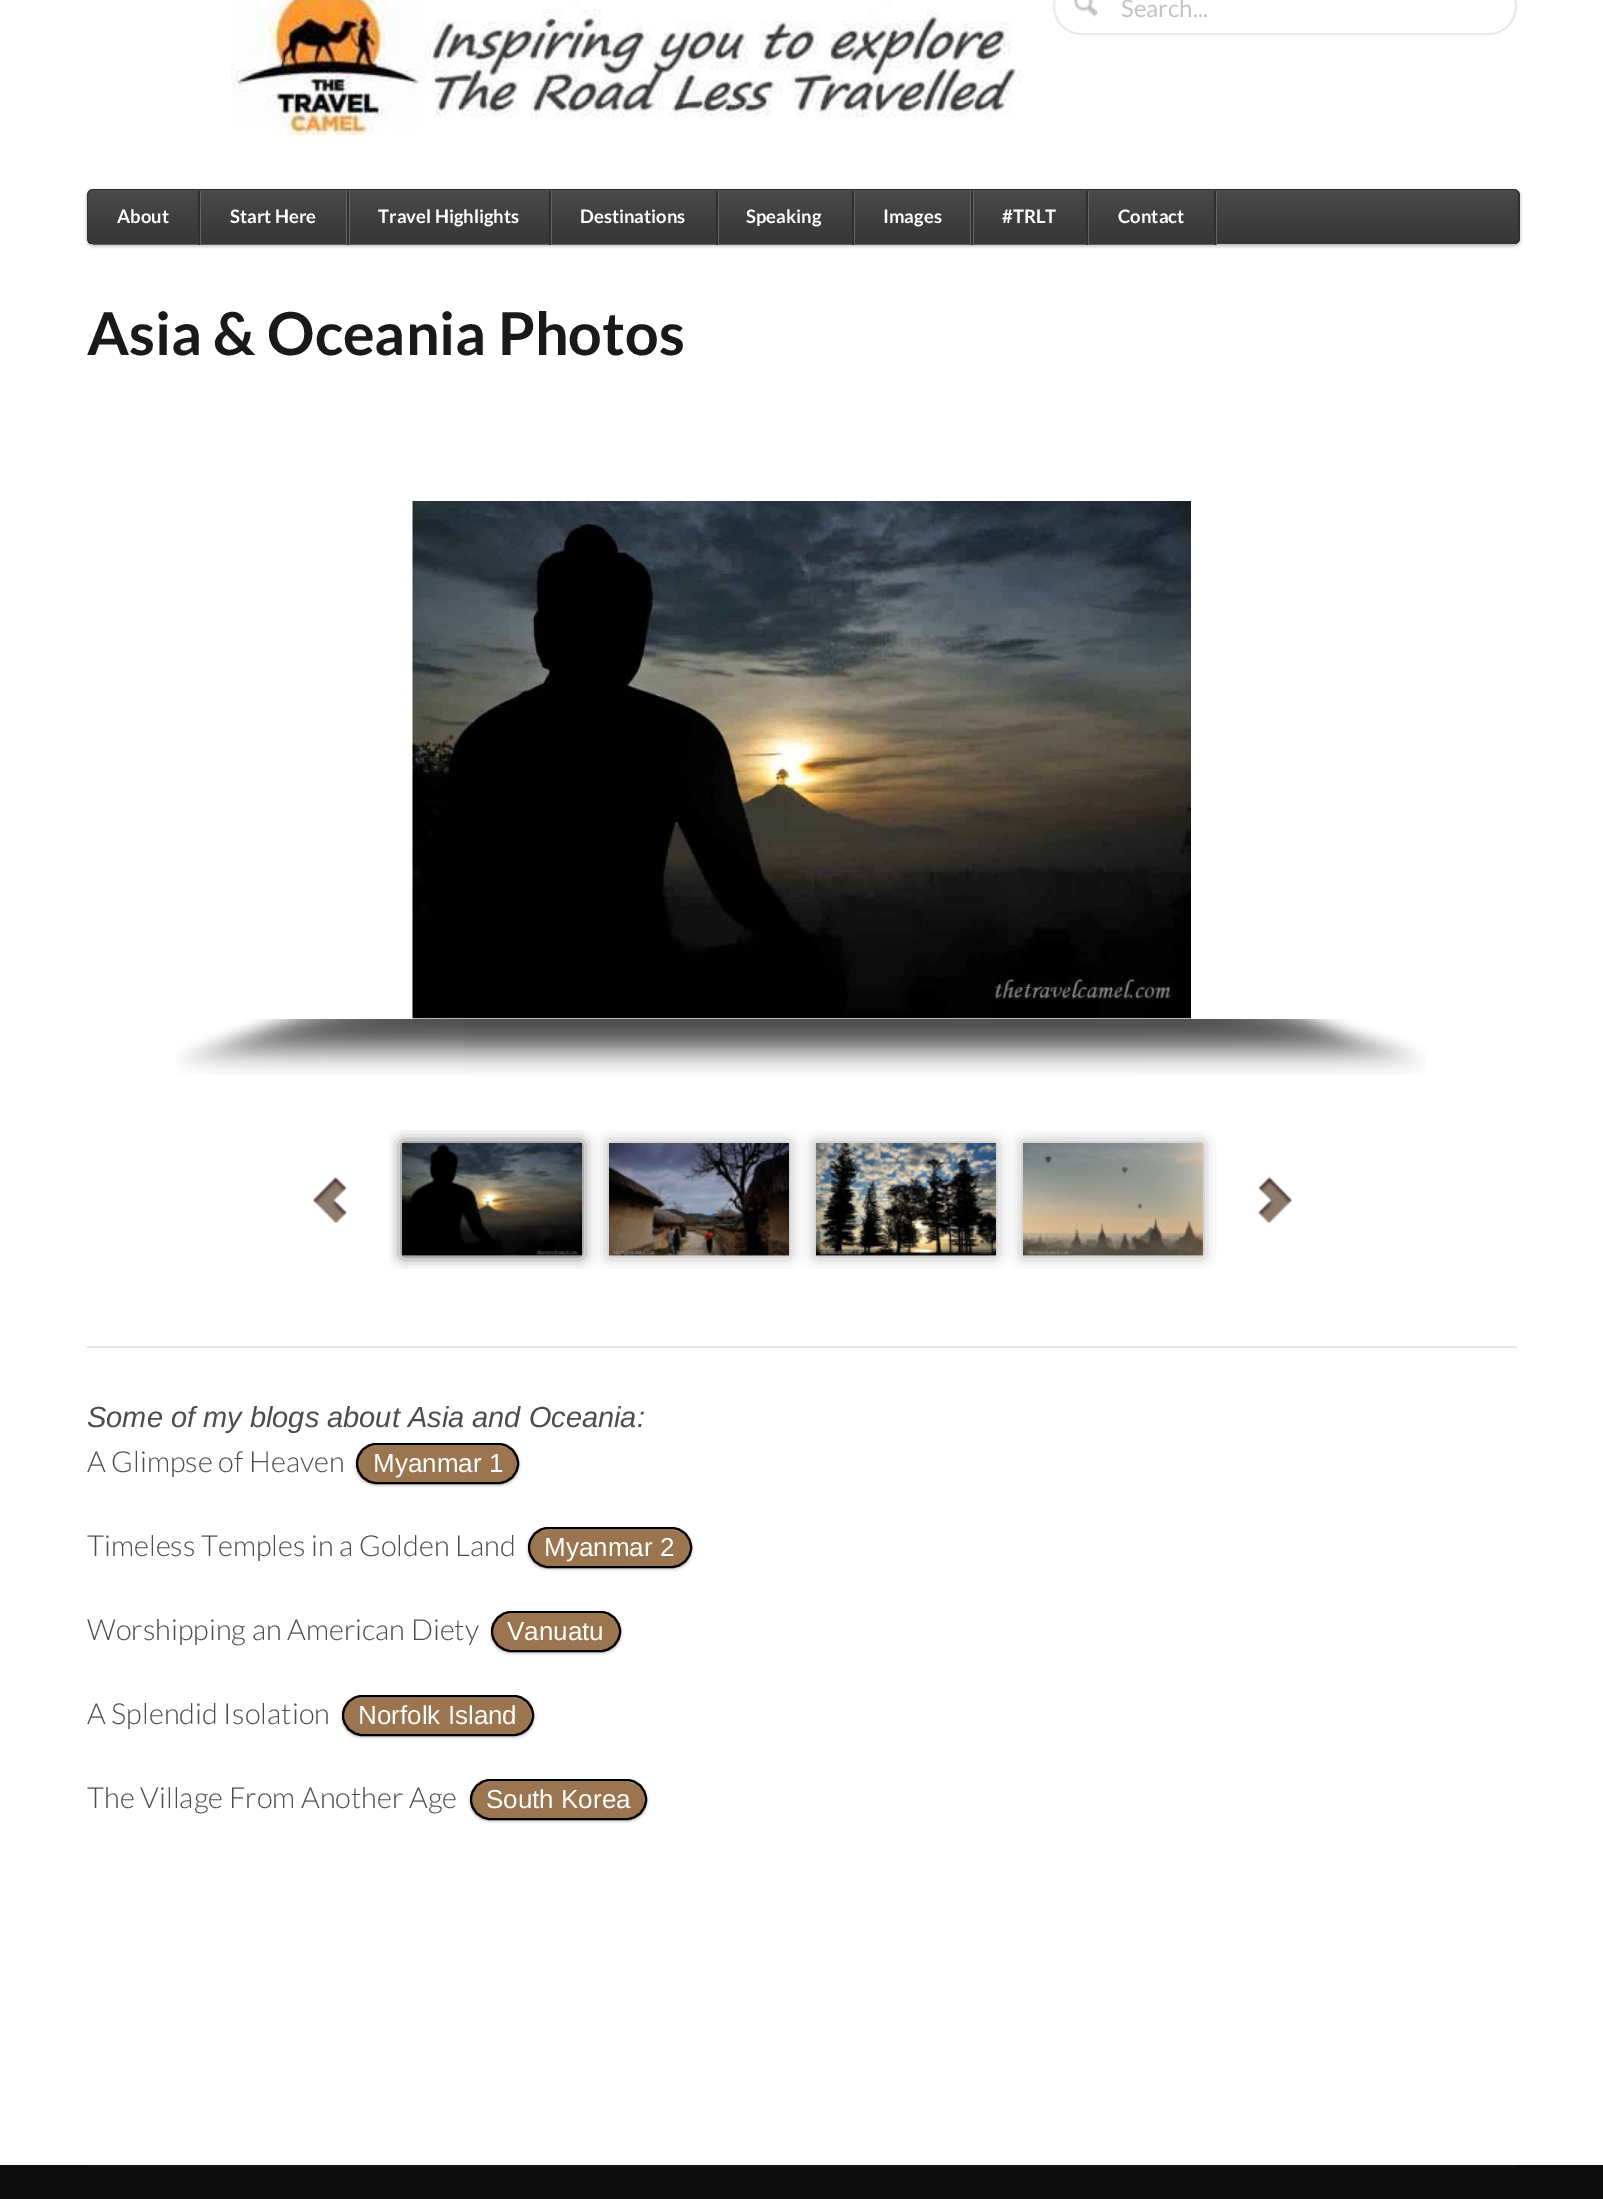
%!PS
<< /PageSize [1603 2199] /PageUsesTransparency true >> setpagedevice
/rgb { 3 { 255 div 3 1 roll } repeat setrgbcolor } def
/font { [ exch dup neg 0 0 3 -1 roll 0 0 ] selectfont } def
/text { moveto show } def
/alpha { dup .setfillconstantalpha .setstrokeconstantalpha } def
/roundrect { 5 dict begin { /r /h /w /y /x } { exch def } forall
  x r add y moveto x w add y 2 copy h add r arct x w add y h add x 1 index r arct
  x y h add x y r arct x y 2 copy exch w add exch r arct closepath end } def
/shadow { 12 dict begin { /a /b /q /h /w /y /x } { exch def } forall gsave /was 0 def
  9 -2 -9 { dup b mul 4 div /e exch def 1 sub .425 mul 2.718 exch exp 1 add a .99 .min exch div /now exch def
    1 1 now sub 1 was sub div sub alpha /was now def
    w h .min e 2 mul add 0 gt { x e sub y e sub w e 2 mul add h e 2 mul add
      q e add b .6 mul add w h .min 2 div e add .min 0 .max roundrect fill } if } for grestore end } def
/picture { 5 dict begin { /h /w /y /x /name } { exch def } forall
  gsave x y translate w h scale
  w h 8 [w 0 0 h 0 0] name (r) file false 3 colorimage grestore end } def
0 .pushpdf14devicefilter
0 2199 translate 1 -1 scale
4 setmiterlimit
255 255 255 rgb
0 0 1603 2199 rectfill
(img_01.rgb) 231 0 792 135 picture
234 234 234 rgb
2 setlinewidth
1054 -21 462 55 27.5 roundrect stroke
(img_02.rgb) 1074 0 24 17 picture
0 0 0 rgb
87 191 1433 55 6 2 0.3 shadow
gsave 93 190 moveto 1421 0 rlineto 2 0 4 2 4 5 rcurveto 0 44 rlineto 0 3 -2 5 -4 5 rcurveto -1421 0 rlineto -3 0 -5 -2 -5 -5 rcurveto 0 -44 rlineto 0 -3 2 -5 5 -5 rcurveto closepath clip newpath
<< /ShadingType 2 /ColorSpace /DeviceRGB /Coords [803 190 803 245] /Extend [true true] /Function << /FunctionType 2 /Domain [0 1] /C0 [0.29 0.29 0.29] /C1 [0.212 0.212 0.212] /N 1 >> >> shfill grestore
47 47 47 rgb
93 189 moveto 1421 0 rlineto 3 0 6 3 6 6 rcurveto 0 44 rlineto 0 3 -3 5 -6 5 rcurveto -1421 0 rlineto -3 0 -6 -2 -6 -5 rcurveto 0 -44 rlineto 0 -3 3 -6 6 -6 rcurveto closepath 93 190 moveto 1421 0 rlineto 2 0 4 2 4 5 rcurveto 0 44 rlineto 0 3 -2 5 -4 5 rcurveto -1421 0 rlineto -3 0 -5 -2 -5 -5 rcurveto 0 -44 rlineto 0 -3 2 -5 5 -5 rcurveto closepath eofill
100 100 100 rgb
92 244 moveto 2 1 rlineto 107 0 rlineto 0 -54 rlineto -3 0 rlineto 0 53 rlineto closepath fill
201 244 moveto 0 1 rlineto 149 0 rlineto 0 -54 rlineto -4 0 rlineto 0 53 rlineto closepath fill
47 47 47 rgb
198 191 2 54 rectfill
100 100 100 rgb
350 244 moveto 0 1 rlineto 202 0 rlineto 0 -54 rlineto -3 0 rlineto 0 53 rlineto closepath fill
47 47 47 rgb
347 191 2 54 rectfill
100 100 100 rgb
552 244 moveto 0 1 rlineto 167 0 rlineto 0 -54 rlineto -3 0 rlineto 0 53 rlineto closepath fill
47 47 47 rgb
549 191 2 54 rectfill
100 100 100 rgb
719 244 moveto 0 1 rlineto 136 0 rlineto 0 -54 rlineto -3 0 rlineto 0 53 rlineto closepath fill
47 47 47 rgb
716 191 2 54 rectfill
100 100 100 rgb
855 244 moveto 0 1 rlineto 119 0 rlineto 0 -54 rlineto -4 0 rlineto 0 53 rlineto closepath fill
47 47 47 rgb
852 191 2 54 rectfill
100 100 100 rgb
974 244 moveto 0 1 rlineto 115 0 rlineto 0 -54 rlineto -3 0 rlineto 0 53 rlineto closepath fill
47 47 47 rgb
971 191 2 54 rectfill
100 100 100 rgb
1088 244 moveto 0 1 rlineto 129 0 rlineto 0 -54 rlineto -2 0 rlineto 0 53 rlineto closepath fill
47 47 47 rgb
1214 191 2 54 rectfill
1086 191 2 54 rectfill
(img_03.rgb) 412 501 779 518 picture
(img_04.rgb) 176 1019 289 56 picture
(img_05.rgb) 465 1019 675 57 picture
(img_06.rgb) 1140 1019 287 56 picture
gsave
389 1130 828 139 rectclip
85 85 85 rgb
402 1143 180 113 0 7.5 1 shadow
grestore
(img_07.rgb) 402 1143 180 113 picture
gsave
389 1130 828 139 rectclip
170 170 170 rgb
609 1143 180 113 0 7.5 1 shadow
grestore
(img_08.rgb) 609 1143 180 113 picture
gsave
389 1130 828 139 rectclip
170 170 170 rgb
816 1143 180 113 0 7.5 1 shadow
grestore
(img_09.rgb) 816 1143 180 113 picture
gsave
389 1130 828 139 rectclip
170 170 170 rgb
1023 1143 180 113 0 7.5 1 shadow
grestore
(img_10.rgb) 1023 1143 180 113 picture
(img_11.rgb) 313 1177 34 46 picture
(img_12.rgb) 1258 1177 34 46 picture
230 230 230 rgb
87 1346 1430 2 rectfill
0 0 0 rgb
356 1445 163 40 20 1.5 0.29 shadow
154 117 79 rgb
356 1443 163 41 20.5 roundrect fill
184 158 132 rgb
376 1446 moveto 123 0 rlineto 10 0 19 8 19 18 rcurveto 0 -11 -8 -19 -18 -19 rcurveto -124 0 rlineto -11 0 -19 8 -19 19 rcurveto 0 -10 8 -18 19 -18 rcurveto closepath fill
0 0 0 rgb
357 1444 161 39 19.5 roundrect stroke
528 1529 164 40 20 1.5 0.29 shadow
154 117 79 rgb
528 1527 164 41 20.5 roundrect fill
184 158 132 rgb
548 1530 moveto 123 0 rlineto 11 0 19 8 19 18 rcurveto 0 -11 -8 -19 -18 -19 rcurveto -124 0 rlineto -10 0 -18 8 -18 19 rcurveto 0 -10 8 -18 18 -18 rcurveto closepath fill
0 0 0 rgb
529 1528 162 39 19.5 roundrect stroke
491 1613 130 40 20 1.5 0.29 shadow
154 117 79 rgb
491 1611 130 41 20.5 roundrect fill
184 158 132 rgb
511 1614 moveto 90 0 rlineto 10 0 19 8 19 18 rcurveto 0 -11 -8 -19 -18 -19 rcurveto -92 0 rlineto -10 0 -18 8 -18 19 rcurveto 0 -10 8 -18 19 -18 rcurveto closepath fill
0 0 0 rgb
492 1612 128 39 19.5 roundrect stroke
342 1697 192 40 20 1.5 0.29 shadow
154 117 79 rgb
342 1695 192 41 20.5 roundrect fill
184 158 132 rgb
362 1698 moveto 152 0 rlineto 10 0 18 8 18 19 rcurveto 0 3 -1 6 -2 9 rcurveto 2 -3 3 -7 3 -10 rcurveto 0 -11 -8 -19 -19 -19 rcurveto -152 0 rlineto -10 0 -18 8 -18 19 rcurveto 0 -10 8 -18 18 -18 rcurveto closepath fill
0 0 0 rgb
343 1696 190 39 19.5 roundrect stroke
470 1781 177 40 20 1.5 0.29 shadow
154 117 79 rgb
470 1779 177 41 20.5 roundrect fill
184 158 132 rgb
490 1782 moveto 136 0 rlineto 11 0 19 8 19 18 rcurveto 0 -11 -8 -19 -19 -19 rcurveto -136 0 rlineto -11 0 -19 8 -19 19 rcurveto 0 -10 8 -18 19 -18 rcurveto closepath fill
0 0 0 rgb
471 1780 175 39 19.5 roundrect stroke
12 12 12 rgb
0 2165 1603 34 rectfill
21 21 21 rgb
87 2165 1430 2 rectfill
/Lato-Regular 24 font
196 196 196 rgb
(Search...) 1121 17 text
/Lato-Bold 18.5 font
255 255 255 rgb
(About) 117 223 text
(Start Here) 230 223 text
(Travel Highlights) 378 223 text
(Destinations) 580 223 text
(Speaking) 746 223 text
(Images) 883 223 text
(#TRLT) 1002 223 text
(Contact) 1118 223 text
/Lato-Bold 59.25 font
25 25 25 rgb
(Asia & Oceania Photos) 87 355 text
/LiberationSans-Italic 29 font
76 76 76 rgb
(Some of my blogs about Asia and Oceania:) 87 1427 text
/Lato-Light 29 font
(A Glimpse of Heaven) 87 1472 text
/LiberationSans-Regular 26 font
255 255 255 rgb
(Myanmar 1) 373 1472 text
/Lato-Light 29 font
76 76 76 rgb
(Timeless Temples in a Golden Land) 87 1556 text
/LiberationSans-Regular 26 font
255 255 255 rgb
(Myanmar 2) 544 1556 text
/Lato-Light 29 font
76 76 76 rgb
(Worshipping an American Diety) 87 1640 text
/LiberationSans-Regular 26 font
255 255 255 rgb
(Vanuatu) 507 1640 text
/Lato-Light 29 font
76 76 76 rgb
(A Splendid Isolation) 87 1724 text
/LiberationSans-Regular 26 font
255 255 255 rgb
(Norfolk Island) 358 1724 text
/Lato-Light 29 font
76 76 76 rgb
(The Village From Another Age) 87 1808 text
/LiberationSans-Regular 26 font
255 255 255 rgb
(South Korea) 486 1808 text
.poppdf14devicefilter showpage
